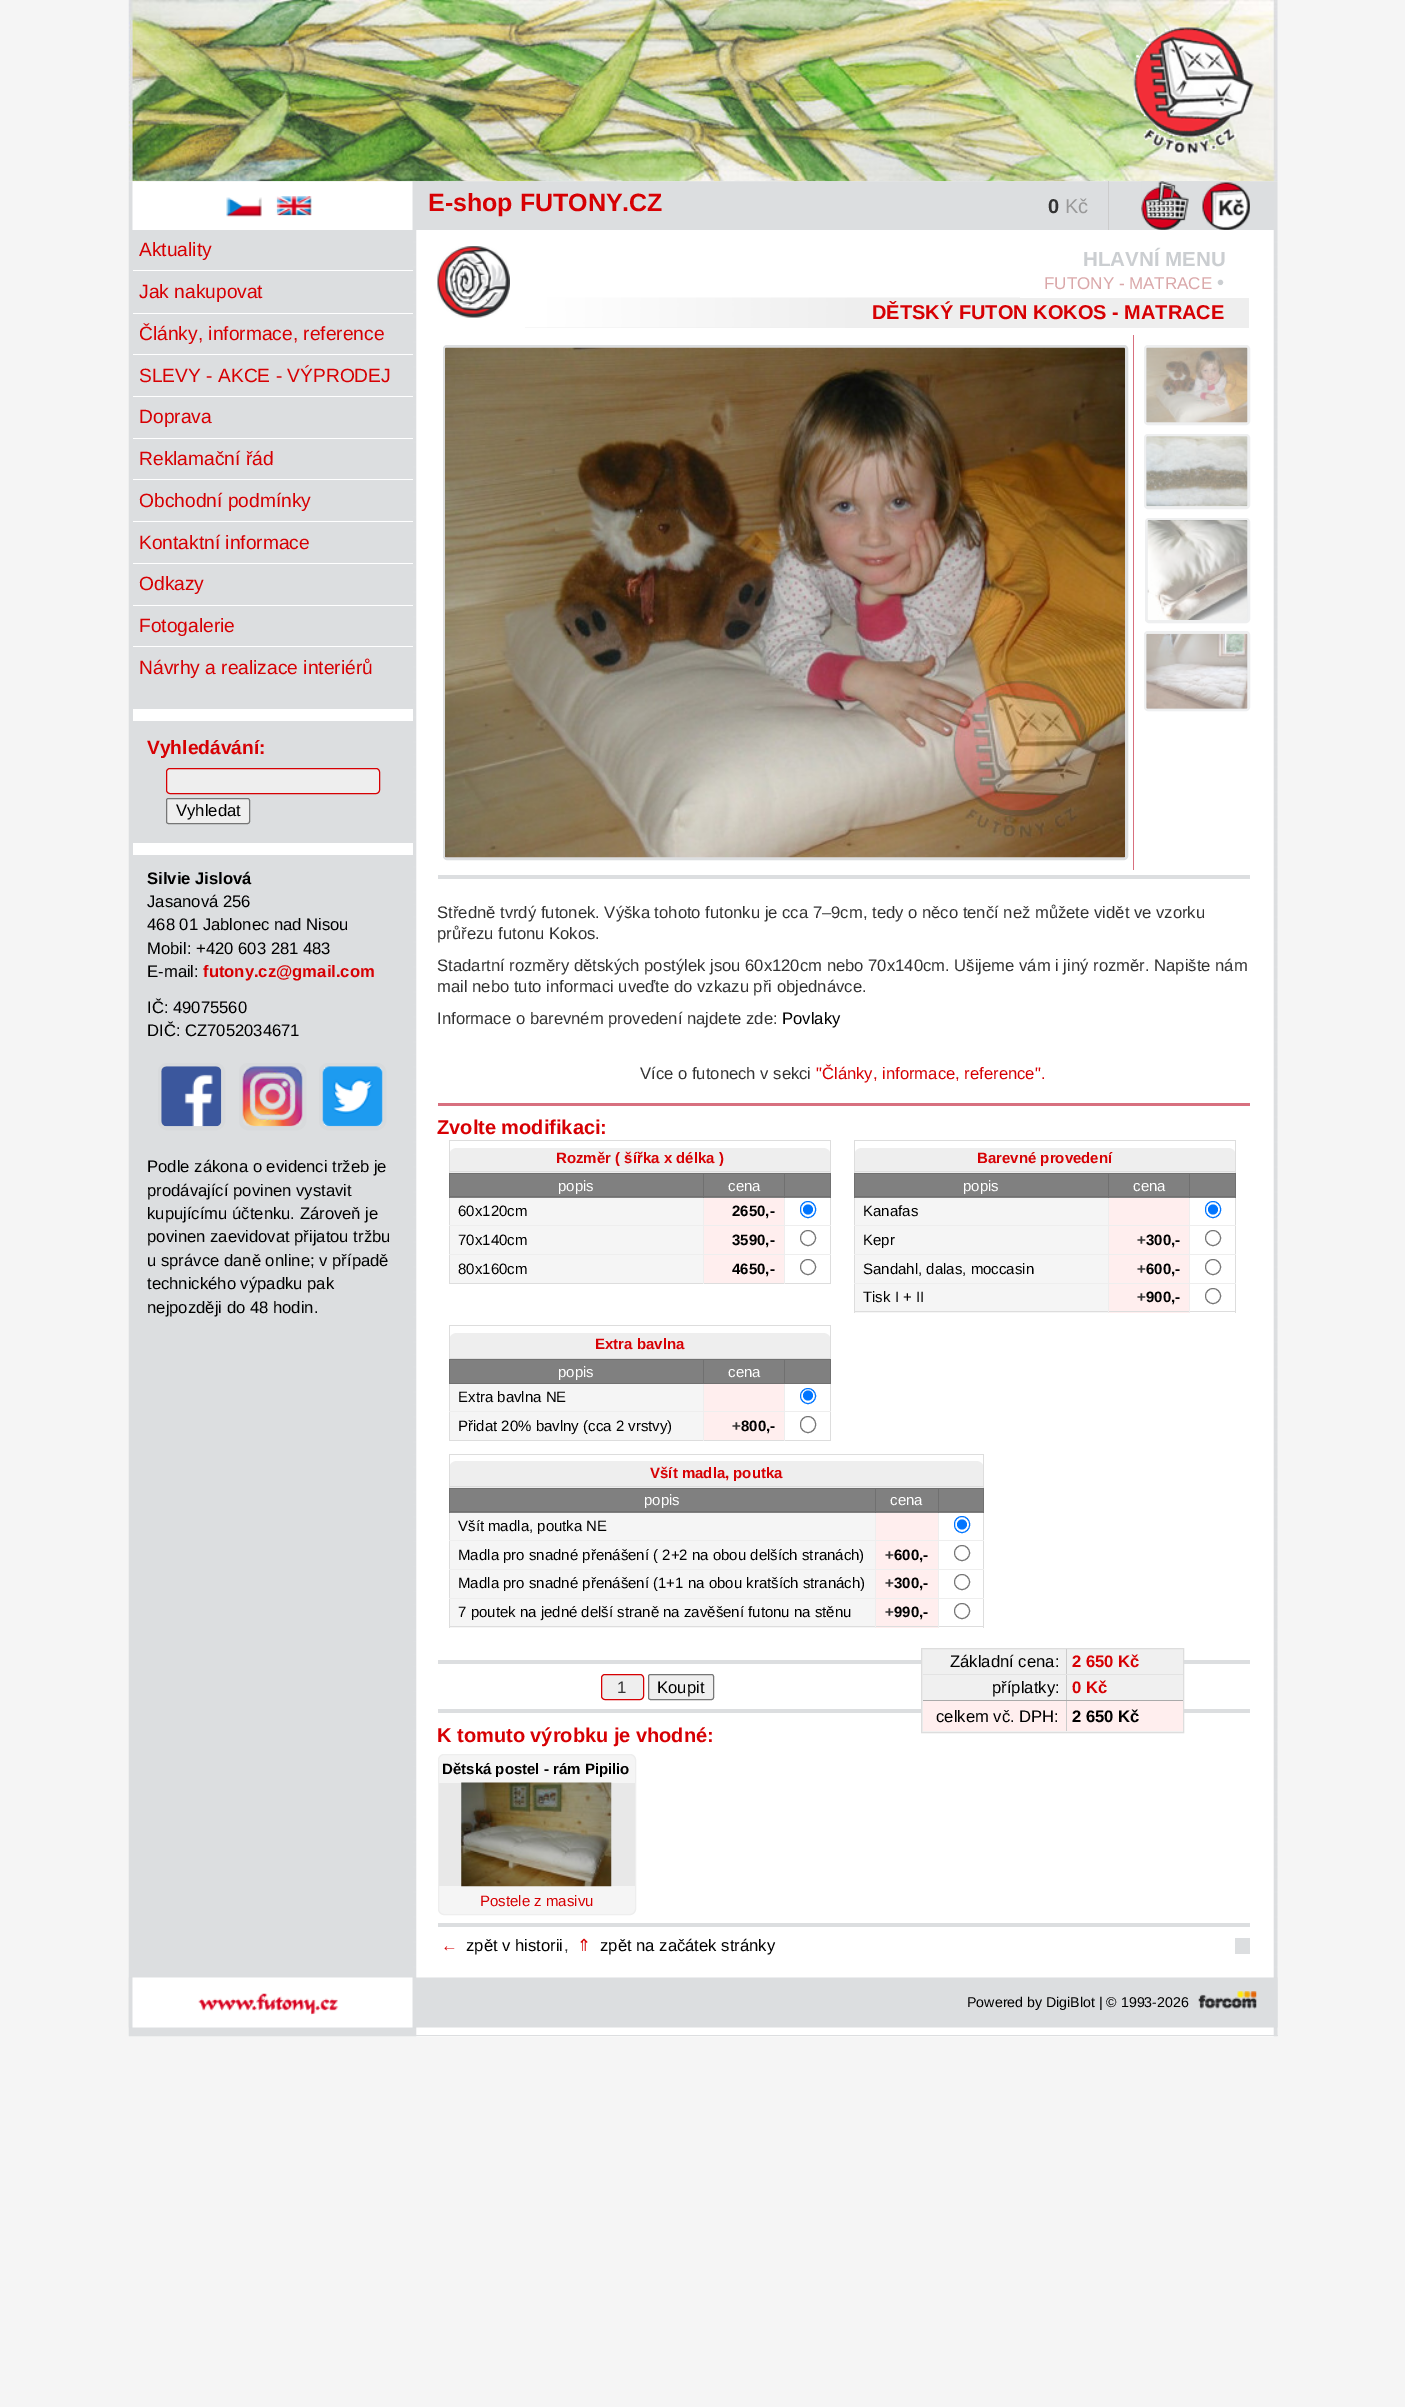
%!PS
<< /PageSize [1405 2407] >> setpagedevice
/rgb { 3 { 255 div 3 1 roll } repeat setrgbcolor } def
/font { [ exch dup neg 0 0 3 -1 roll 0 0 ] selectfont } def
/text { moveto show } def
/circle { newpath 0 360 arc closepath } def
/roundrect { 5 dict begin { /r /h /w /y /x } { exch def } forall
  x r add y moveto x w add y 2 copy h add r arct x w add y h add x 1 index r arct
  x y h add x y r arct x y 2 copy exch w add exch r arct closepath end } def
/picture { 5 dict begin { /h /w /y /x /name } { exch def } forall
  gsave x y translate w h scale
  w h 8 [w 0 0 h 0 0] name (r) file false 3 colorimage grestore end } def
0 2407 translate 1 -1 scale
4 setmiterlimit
245 245 245 rgb
0 0 1405 2407 rectfill
(img_01.rgb) 128 0 1150 182 picture
(img_02.rgb) 1133 27 121 127 picture
(img_03.rgb) 128 181 1150 49 picture
(img_04.rgb) 226 196 86 21 picture
204 204 204 rgb
1108 181 1 49 rectfill
(img_05.rgb) 1141 181 109 49 picture
(img_06.rgb) 128 230 1150 1807 picture
255 255 255 rgb
133 270 280 1 rectfill
133 313 280 1 rectfill
133 354 280 1 rectfill
133 396 280 1 rectfill
133 438 280 1 rectfill
133 479 280 1 rectfill
133 521 280 1 rectfill
133 563 280 1 rectfill
133 605 280 1 rectfill
133 646 280 1 rectfill
133 709 280 12 rectfill
238 238 238 rgb
166.5 768.5 213 25 3.5 roundrect gsave fill grestore
215 0 3 rgb
stroke
239 239 239 rgb
166.5 798.5 83 25 2 roundrect gsave fill grestore
118 118 118 rgb
stroke
255 255 255 rgb
133 843 280 12 rectfill
216 218 220 rgb
4 setlinewidth
160 1065 63 63 7 roundrect stroke
(img_07.rgb) 161 1066 61 61 picture
241 1065 63 63 7 roundrect stroke
(img_08.rgb) 242 1066 61 61 picture
321 1065 63 63 7 roundrect stroke
(img_09.rgb) 322 1066 61 61 picture
(img_10.rgb) 437 246 73 72 picture
238 238 238 rgb
525 298 724 30 rectfill
(img_11.rgb) 525 297 495 31 picture
216 112 127 rgb
1133 335 1 535 rectfill
220 222 224 rgb
3 setlinewidth
444.5 346.5 682 512 2.5 roundrect stroke
(img_12.rgb) 445 347 680 511 picture
238 239 240 rgb
1145.5 346.5 103 77 2.5 roundrect stroke
(img_13.rgb) 1146 347 102 76 picture
1145.5 435.5 103 72 2.5 roundrect stroke
(img_14.rgb) 1146 436 102 71 picture
1146.5 519.5 102 102 2.5 roundrect stroke
(img_15.rgb) 1147 520 101 100 picture
1145.5 632.5 103 77 2.5 roundrect stroke
(img_16.rgb) 1146 633 102 76 picture
220 222 224 rgb
438 875 812 4 rectfill
216 112 127 rgb
438 1103 812 3 rectfill
221 221 221 rgb
449 1140 382 1 rectfill
238 238 238 rgb
457 1148 moveto 366 0 rlineto 4.5 0 8 3.5 8 8 rcurveto 0 17 rlineto -382 0 rlineto 0 -17 rlineto 0 -4.5 3.5 -8 8 -8 rcurveto closepath fill
221 221 221 rgb
449 1171 382 1 rectfill
830 1140 1 144 rectfill
449 1283 382 1 rectfill
449 1140 1 144 rectfill
128 128 128 rgb
450 1174 253 24 rectfill
112 112 112 rgb
784 1173 47 1 rectfill
128 128 128 rgb
785 1174 45 24 rectfill
112 112 112 rgb
830 1173 1 25 rectfill
245 245 245 rgb
450 1198 253 85 rectfill
238 238 238 rgb
703 1198 1 86 rectfill
255 238 238 rgb
704 1198 80 85 rectfill
238 238 238 rgb
784 1225 47 1 rectfill
784 1254 47 1 rectfill
784 1254 1 30 rectfill
449 1254 336 1 rectfill
784 1225 1 30 rectfill
449 1225 336 1 rectfill
784 1196 1 30 rectfill
112 112 112 rgb
784 1196 47 1 rectfill
784 1173 1 25 rectfill
703 1173 82 1 rectfill
128 128 128 rgb
704 1174 80 24 rectfill
112 112 112 rgb
703 1196 82 1 rectfill
703 1173 1 25 rectfill
449 1173 255 1 rectfill
449 1196 255 1 rectfill
449 1173 1 25 rectfill
0 117 255 rgb
1 setlinewidth
800.5 1201.5 15 16 7.5 roundrect stroke
808 1209.5 5 circle fill
118 118 118 rgb
808 1238 7.5 circle stroke
808 1267 7.5 circle stroke
221 221 221 rgb
854 1140 382 1 rectfill
238 238 238 rgb
862 1148 moveto 366 0 rlineto 4.5 0 8 3.5 8 8 rcurveto 0 17 rlineto -382 0 rlineto 0 -17 rlineto 0 -4.5 3.5 -8 8 -8 rcurveto closepath fill
221 221 221 rgb
854 1171 382 1 rectfill
1235 1140 1 173 rectfill
245 245 245 rgb
855 1198 253 115 rectfill
255 238 238 rgb
1109 1198 80 115 rectfill
221 221 221 rgb
854 1311 382 1 rectfill
854 1140 1 173 rectfill
128 128 128 rgb
855 1174 253 24 rectfill
112 112 112 rgb
1189 1173 47 1 rectfill
128 128 128 rgb
1190 1174 45 24 rectfill
112 112 112 rgb
1235 1173 1 25 rectfill
238 238 238 rgb
1108 1198 1 115 rectfill
1189 1225 47 1 rectfill
1189 1254 47 1 rectfill
1189 1283 47 1 rectfill
1189 1283 1 30 rectfill
854 1283 336 1 rectfill
1189 1254 1 30 rectfill
854 1254 336 1 rectfill
1189 1225 1 30 rectfill
854 1225 336 1 rectfill
1189 1196 1 30 rectfill
112 112 112 rgb
1189 1196 47 1 rectfill
1189 1173 1 25 rectfill
1108 1173 82 1 rectfill
128 128 128 rgb
1109 1174 80 24 rectfill
112 112 112 rgb
1108 1196 82 1 rectfill
1108 1173 1 25 rectfill
854 1173 255 1 rectfill
854 1196 255 1 rectfill
854 1173 1 25 rectfill
0 117 255 rgb
1205.5 1201.5 15 16 7.5 roundrect stroke
1213 1209.5 5 circle fill
118 118 118 rgb
1213 1238 7.5 circle stroke
1213 1267 7.5 circle stroke
1213 1296 7.5 circle stroke
221 221 221 rgb
449 1325 382 1 rectfill
238 238 238 rgb
457 1333 moveto 366 0 rlineto 4.5 0 8 3.5 8 8 rcurveto 0 18 rlineto -382 0 rlineto 0 -18 rlineto 0 -4.5 3.5 -8 8 -8 rcurveto closepath fill
221 221 221 rgb
449 1358 382 1 rectfill
830 1325 1 116 rectfill
449 1440 382 1 rectfill
449 1325 1 116 rectfill
128 128 128 rgb
450 1360 253 23 rectfill
112 112 112 rgb
784 1359 47 1 rectfill
830 1359 1 25 rectfill
245 245 245 rgb
450 1384 253 56 rectfill
238 238 238 rgb
703 1384 1 57 rectfill
255 238 238 rgb
704 1384 80 56 rectfill
238 238 238 rgb
784 1411 47 1 rectfill
784 1411 1 30 rectfill
449 1411 336 1 rectfill
784 1383 1 30 rectfill
112 112 112 rgb
784 1383 47 1 rectfill
784 1359 1 25 rectfill
703 1359 82 1 rectfill
703 1383 82 1 rectfill
703 1359 1 25 rectfill
449 1359 255 1 rectfill
449 1383 255 1 rectfill
449 1359 1 25 rectfill
128 128 128 rgb
704 1360 80 23 rectfill
785 1360 45 23 rectfill
0 117 255 rgb
808 1396 7.5 circle stroke
808 1395.5 5 circle fill
118 118 118 rgb
800.5 1416.5 15 16 7.5 roundrect stroke
221 221 221 rgb
449 1454 535 1 rectfill
238 238 238 rgb
457 1461 moveto 519 0 rlineto 4.5 0 8 3.5 8 8 rcurveto 0 19 rlineto -535 0 rlineto 0 -19 rlineto 0 -4.5 3.5 -8 8 -8 rcurveto closepath fill
221 221 221 rgb
449 1486 535 1 rectfill
983 1454 1 174 rectfill
245 245 245 rgb
450 1513 425 115 rectfill
255 238 238 rgb
876 1513 62 115 rectfill
221 221 221 rgb
449 1626 535 1 rectfill
449 1454 1 174 rectfill
128 128 128 rgb
450 1489 425 24 rectfill
112 112 112 rgb
938 1488 46 1 rectfill
128 128 128 rgb
939 1489 44 24 rectfill
112 112 112 rgb
983 1488 1 25 rectfill
238 238 238 rgb
875 1513 1 115 rectfill
938 1540 46 1 rectfill
938 1569 46 1 rectfill
938 1598 46 1 rectfill
938 1598 1 30 rectfill
449 1598 490 1 rectfill
938 1569 1 30 rectfill
449 1569 490 1 rectfill
938 1540 1 30 rectfill
449 1540 490 1 rectfill
938 1511 1 30 rectfill
112 112 112 rgb
938 1511 46 1 rectfill
938 1488 1 25 rectfill
875 1488 64 1 rectfill
128 128 128 rgb
876 1489 62 24 rectfill
112 112 112 rgb
875 1511 64 1 rectfill
875 1488 1 25 rectfill
449 1488 427 1 rectfill
449 1511 427 1 rectfill
449 1488 1 25 rectfill
0 117 255 rgb
954.5 1516.5 15 16 7.5 roundrect stroke
962 1524.5 5 circle fill
118 118 118 rgb
962 1553 7.5 circle stroke
962 1582 7.5 circle stroke
962 1611 7.5 circle stroke
220 222 224 rgb
438 1660 812 4 rectfill
438 1709 812 4 rectfill
240 240 240 rgb
921.5 1648.5 moveto 262 0 rlineto 0 84 rlineto -262 0 rlineto closepath gsave fill grestore
221 221 221 rgb
stroke
227 227 227 rgb
923 1674 260 1 rectfill
204 204 204 rgb
1066 1649 1 25 rectfill
1066 1675 1 25 rectfill
255 238 238 rgb
923 1701 260 30 rectfill
170 170 170 rgb
923 1700 260 1 rectfill
204 204 204 rgb
1066 1701 1 30 rectfill
238 238 238 rgb
601.5 1674.5 42 25 3.5 roundrect gsave fill grestore
215 0 3 rgb
stroke
239 239 239 rgb
648.5 1674.5 65 25 2 roundrect gsave fill grestore
118 118 118 rgb
stroke
245 245 245 rgb
438.5 1754.5 197 160 5.5 roundrect gsave fill grestore
238 238 238 rgb
stroke
232 232 232 rgb
439 1783 196 103 rectfill
(img_17.rgb) 461 1782 151 105 picture
220 222 224 rgb
438 1923 812 4 rectfill
1235 1938 15 16 rectfill
(img_18.rgb) 128 1977 1150 51 picture
(img_19.rgb) 198 1993 141 22 picture
(img_20.rgb) 1198 1991 59 18 picture
416 2035 862 1 rectfill
/LiberationSans-Bold 25 font
215 0 3 rgb
(E-shop FUTONY.CZ) 428 211 text
/LiberationSans-Bold 20 font
51 51 51 rgb
(0) 1048 213 text
/LiberationSans-Regular 20 font
153 153 153 rgb
(Kč) 1065 213 text
/LiberationSans-Regular 19.2 font
215 0 3 rgb
(Aktuality) 139 256 text
(Jak nakupovat) 139 298 text
(Články, informace, reference) 139 340 text
(SLEVY - AKCE - VÝPRODEJ) 139 382 text
(Doprava) 139 423 text
(Reklamační řád) 139 465 text
(Obchodní podmínky) 139 507 text
(Kontaktní informace) 139 549 text
(Odkazy) 139 590 text
(Fotogalerie) 139 632 text
(Návrhy a realizace interiérů) 139 674 text
/LiberationSans-Bold 19.2 font
(Vyhledávání:) 147 754 text
/LiberationSans-Regular 16.65 font
0 0 0 rgb
(Vyhledat) 176 816 text
/LiberationSans-Bold 16.65 font
(Silvie Jislová) 147 884 text
/LiberationSans-Regular 16.65 font
(Jasanová 256) 147 907 text
(468 01 Jablonec nad Nisou) 147 930 text
(Mobil: +420 603 281 483) 147 954 text
(E-mail:) 147 977 text
/LiberationSans-Bold 16.65 font
215 0 3 rgb
(futony.cz@gmail.com) 203 977 text
/LiberationSans-Regular 16.65 font
0 0 0 rgb
(IČ: 49075560) 147 1013 text
(DIČ: CZ7052034671) 147 1036 text
(Podle zákona o evidenci tržeb je) 147 1172 text
(prodávající povinen vystavit) 147 1196 text
(kupujícímu účtenku. Zároveň je) 147 1219 text
(povinen zaevidovat přijatou tržbu) 147 1242 text
(u správce daně online; v případě) 147 1266 text
(technického výpadku pak) 147 1289 text
(nejpozději do 48 hodin.) 147 1313 text
/LiberationSans-Bold 20.5 font
203 206 209 rgb
(HLAVNÍ MENU) 1083 266 text
/LiberationSans-Regular 17 font
218 167 169 rgb
(FUTONY - MATRACE) 1044 289 text
/LiberationSans-Regular 20 font
203 206 209 rgb
(•) 1217 289 text
/LiberationSans-Bold 20 font
215 0 3 rgb
(DĚTSKÝ FUTON KOKOS - MATRACE) 872 319 text
/LiberationSans-Regular 16.65 font
51 51 51 rgb
(Středně tvrdý futonek. Výška tohoto futonku je cca 7–9cm, tedy o něco tenčí než můžete vidět ve vzorku) 437 918 text
(průřezu futonu Kokos.) 437 939 text
(Stadartní rozměry dětských postýlek jsou 60x120cm nebo 70x140cm. Ušijeme vám i jiný rozměr. Napište nám) 437 971 text
(mail nebo tuto informaci uveďte do vzkazu při objednávce.) 437 992 text
(Informace o barevném provedení najdete zde:) 437 1024 text
0 0 0 rgb
(Povlaky) 782 1024 text
51 51 51 rgb
(Více o futonech v sekci) 640 1079 text
215 0 3 rgb
("Články, informace, reference".) 816 1079 text
/LiberationSans-Bold 20 font
(Zvolte modifikaci:) 437 1134 text
/LiberationSans-Bold 15 font
(Rozměr \( šířka x délka \)) 556 1163 text
/LiberationSans-Regular 15 font
255 255 255 rgb
(popis) 558 1191 text
(cena) 728 1191 text
0 0 0 rgb
(60x120cm) 458 1216 text
/LiberationSans-Bold 15 font
(2650,-) 732 1216 text
/LiberationSans-Regular 15 font
(70x140cm) 458 1245 text
/LiberationSans-Bold 15 font
(3590,-) 732 1245 text
/LiberationSans-Regular 15 font
(80x160cm) 458 1274 text
/LiberationSans-Bold 15 font
(4650,-) 732 1274 text
215 0 3 rgb
(Barevné provedení) 977 1163 text
/LiberationSans-Regular 15 font
255 255 255 rgb
(popis) 963 1191 text
(cena) 1133 1191 text
0 0 0 rgb
(Kanafas) 863 1216 text
(Kepr) 863 1245 text
/LiberationSans-Bold 15 font
51 51 51 rgb
(+) 1137 1245 text
0 0 0 rgb
(300,-) 1146 1245 text
/LiberationSans-Regular 15 font
(Sandahl, dalas, moccasin) 863 1274 text
/LiberationSans-Bold 15 font
51 51 51 rgb
(+) 1137 1274 text
0 0 0 rgb
(600,-) 1146 1274 text
/LiberationSans-Regular 15 font
(Tisk I + II) 863 1302 text
/LiberationSans-Bold 15 font
51 51 51 rgb
(+) 1137 1302 text
0 0 0 rgb
(900,-) 1146 1302 text
215 0 3 rgb
(Extra bavlna) 595 1349 text
/LiberationSans-Regular 15 font
255 255 255 rgb
(popis) 558 1377 text
(cena) 728 1377 text
0 0 0 rgb
(Extra bavlna NE) 458 1402 text
(Přidat 20% bavlny \(cca 2 vrstvy\)) 458 1431 text
/LiberationSans-Bold 15 font
51 51 51 rgb
(+) 732 1431 text
0 0 0 rgb
(800,-) 741 1431 text
215 0 3 rgb
(Všít madla, poutka) 650 1478 text
/LiberationSans-Regular 15 font
255 255 255 rgb
(popis) 644 1505 text
(cena) 890 1505 text
0 0 0 rgb
(Všít madla, poutka NE) 458 1531 text
(Madla pro snadné přenášení \( 2+2 na obou delších stranách\)) 458 1560 text
/LiberationSans-Bold 15 font
51 51 51 rgb
(+) 885 1560 text
0 0 0 rgb
(600,-) 894 1560 text
/LiberationSans-Regular 15 font
(Madla pro snadné přenášení \(1+1 na obou kratších stranách\)) 458 1588 text
/LiberationSans-Bold 15 font
51 51 51 rgb
(+) 885 1588 text
0 0 0 rgb
(300,-) 894 1588 text
/LiberationSans-Regular 15 font
(7 poutek na jedné delší straně na zavěšení futonu na stěnu) 458 1617 text
/LiberationSans-Bold 15 font
51 51 51 rgb
(+) 885 1617 text
0 0 0 rgb
(990,-) 894 1617 text
/LiberationSans-Regular 16.65 font
(Základní cena:) 950 1667 text
/LiberationSans-Bold 16.65 font
215 0 3 rgb
(2 650 Kč) 1072 1667 text
/LiberationSans-Regular 16.65 font
0 0 0 rgb
(příplatky:) 992 1693 text
/LiberationSans-Bold 16.65 font
215 0 3 rgb
(0 Kč) 1072 1693 text
/LiberationSans-Regular 16.65 font
0 0 0 rgb
(celkem vč. DPH:) 936 1722 text
/LiberationSans-Bold 16.65 font
(2 650 Kč) 1072 1722 text
/LiberationSans-Regular 16.65 font
51 51 51 rgb
(1) 617 1693 text
0 0 0 rgb
(Koupit) 657 1693 text
/LiberationSans-Bold 20 font
215 0 3 rgb
(K tomuto výrobku je vhodné:) 437 1742 text
/LiberationSans-Bold 15 font
0 0 0 rgb
(Dětská postel - rám Pipilio) 442 1774 text
/LiberationSans-Regular 15 font
215 0 3 rgb
(Postele z masivu) 480 1906 text
/LiberationSans-Regular 16.65 font
(←) 441 1951 text
0 0 0 rgb
(zpět v historii) 466 1951 text
/DejaVuSans-Regular 16.65 font
215 0 3 rgb
(⇑) 577 1951 text
/LiberationSans-Regular 16.65 font
0 0 0 rgb
(zpět na začátek stránky) 600 1951 text
51 51 51 rgb
(,) 564 1951 text
/LiberationSans-Regular 14.2 font
0 0 0 rgb
(Powered by DigiBlot | © 1993-2026) 967 2007 text
showpage
